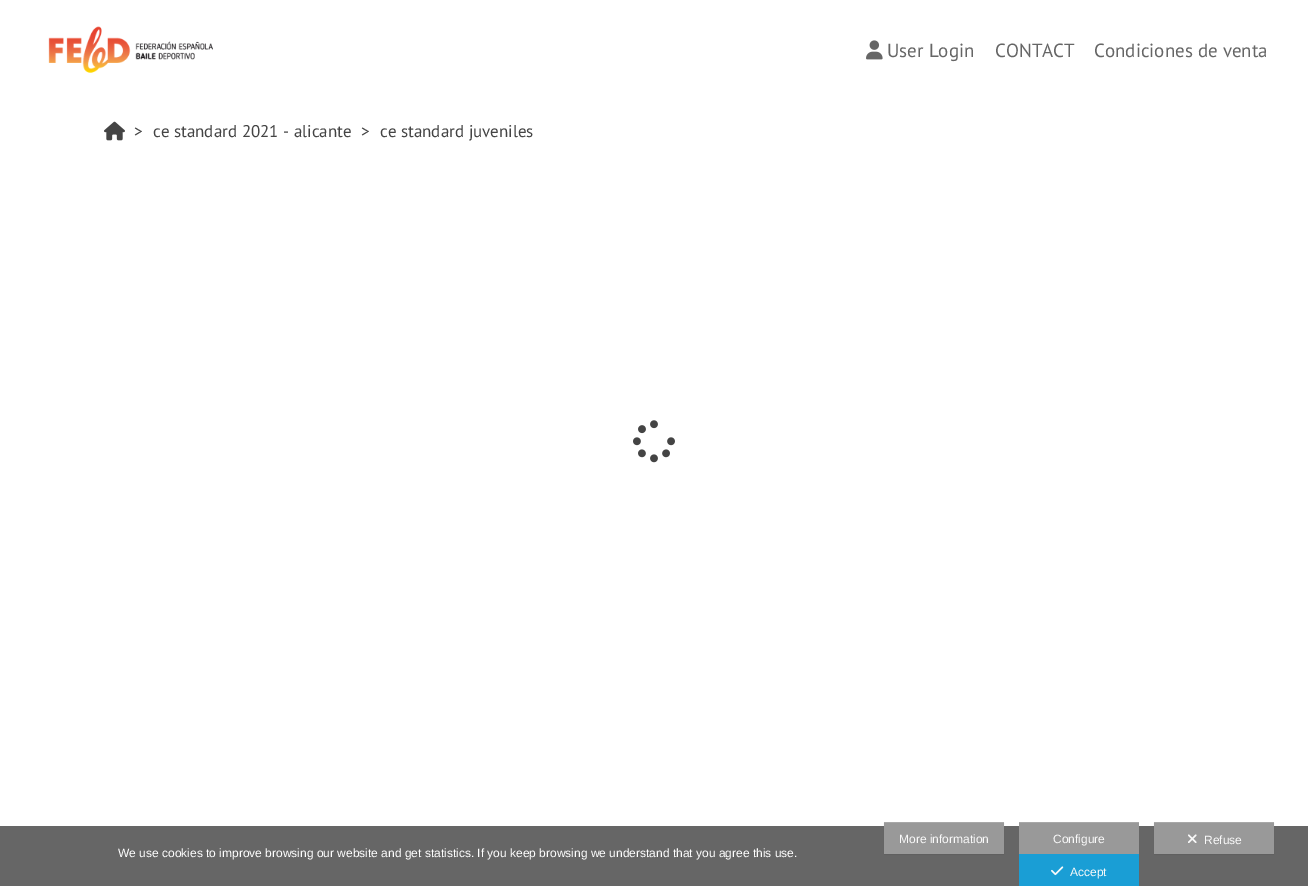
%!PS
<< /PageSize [1308 886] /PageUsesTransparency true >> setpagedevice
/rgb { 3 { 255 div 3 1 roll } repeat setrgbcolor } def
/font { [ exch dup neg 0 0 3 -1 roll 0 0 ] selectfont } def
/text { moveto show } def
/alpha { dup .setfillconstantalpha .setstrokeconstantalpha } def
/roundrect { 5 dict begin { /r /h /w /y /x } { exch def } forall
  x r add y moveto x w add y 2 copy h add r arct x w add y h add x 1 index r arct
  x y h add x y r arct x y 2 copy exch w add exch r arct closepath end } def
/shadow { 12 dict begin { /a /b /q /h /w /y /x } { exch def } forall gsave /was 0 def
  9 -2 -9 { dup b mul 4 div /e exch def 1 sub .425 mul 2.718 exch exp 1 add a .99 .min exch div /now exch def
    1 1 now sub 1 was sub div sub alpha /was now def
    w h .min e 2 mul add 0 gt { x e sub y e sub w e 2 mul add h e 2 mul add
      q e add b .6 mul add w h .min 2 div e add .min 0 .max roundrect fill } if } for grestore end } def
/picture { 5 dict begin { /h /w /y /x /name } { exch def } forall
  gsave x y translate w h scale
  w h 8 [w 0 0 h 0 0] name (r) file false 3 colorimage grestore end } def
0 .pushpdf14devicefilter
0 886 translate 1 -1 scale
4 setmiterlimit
255 255 255 rgb
0 0 1308 886 rectfill
(img_01.rgb) 48 26 165 47 picture
(img_02.rgb) 866 40 17 20 picture
(img_03.rgb) 104 121 21 20 picture
(img_04.rgb) 633 420 42 43 picture
102 102 102 rgb
0 826 1308 60 rectfill
0 0 0 rgb
884 823 120 32 0 0.5 0.07 shadow
153 153 153 rgb
884 823 120 31 rectfill
168 168 168 rgb
884 822 120 1 rectfill
153 153 153 rgb
1019 823 120 31 rectfill
168 168 168 rgb
1019 822 120 1 rectfill
0 0 0 rgb
1154 823 120 32 0 0.5 0.07 shadow
153 153 153 rgb
1154 823 120 31 rectfill
168 168 168 rgb
1154 822 120 1 rectfill
(img_05.rgb) 1188 834 9 9 picture
26 158 213 rgb
1019 854 120 32 rectfill
(img_06.rgb) 1051 866 13 10 picture
/PTSans-Regular 19 font
102 102 102 rgb
(User Login) 887 57 text
(CONTACT) 995 57 text
(Condiciones de venta) 1094 57 text
/PTSans-Regular 17 font
68 68 68 rgb
(>) 134 137 text
(ce standard 2021 - alicante) 153 137 text
(>) 361 137 text
(ce standard juveniles) 380 137 text
/LiberationSans-Regular 12 font
255 255 255 rgb
(We use cookies to improve browsing our website and get statistics. If you keep browsing we understand that you agree this use.) 118 857 text
249 249 249 rgb
(More information) 899 843 text
(Configure) 1053 843 text
(Refuse) 1204 844 text
(Accept) 1070 876 text
.poppdf14devicefilter showpage
